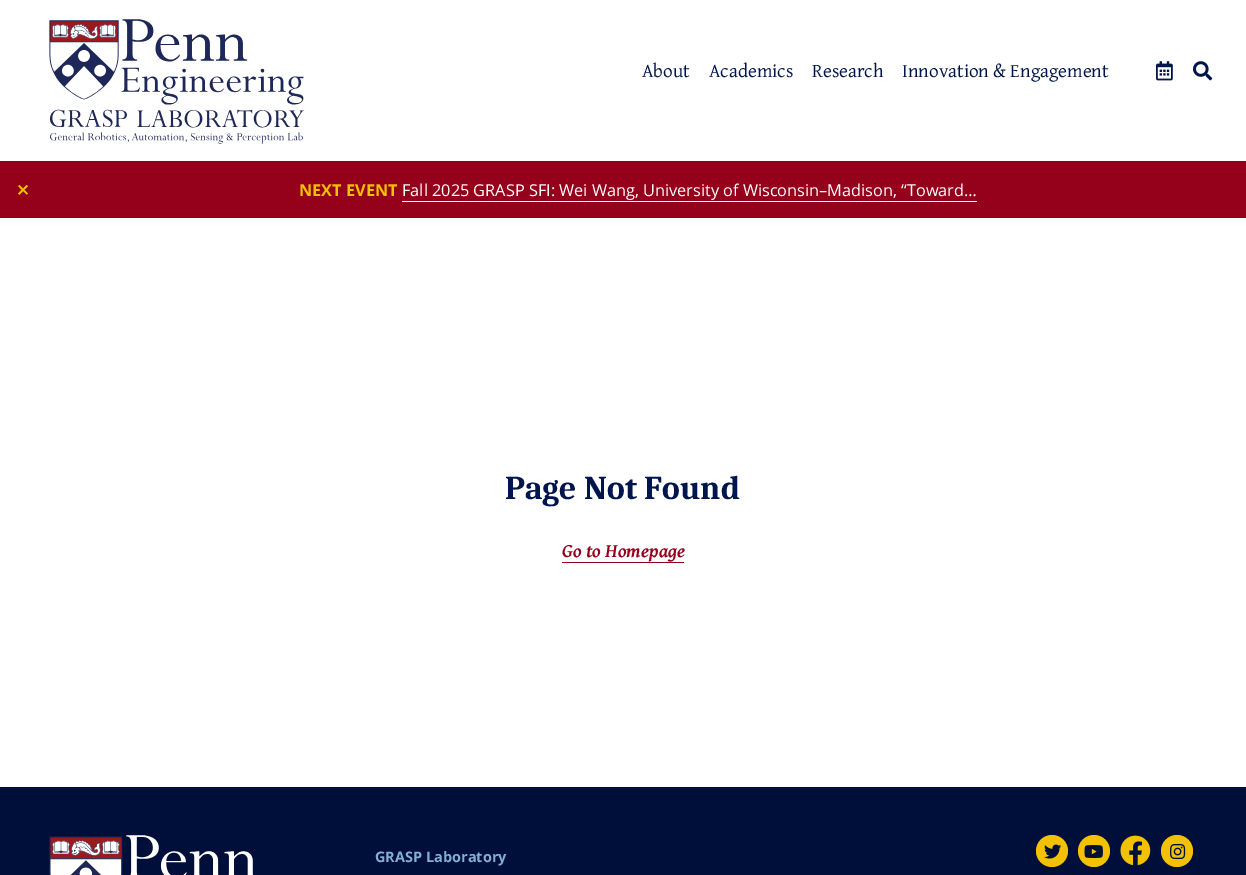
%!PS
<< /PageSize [1246 875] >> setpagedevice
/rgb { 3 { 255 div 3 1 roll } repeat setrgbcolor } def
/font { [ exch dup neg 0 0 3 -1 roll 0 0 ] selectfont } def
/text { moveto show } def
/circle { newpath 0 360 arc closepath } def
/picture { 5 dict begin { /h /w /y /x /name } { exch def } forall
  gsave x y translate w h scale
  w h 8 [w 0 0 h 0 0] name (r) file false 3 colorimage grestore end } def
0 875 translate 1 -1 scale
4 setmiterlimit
255 255 255 rgb
0 0 1246 875 rectfill
(img_01.rgb) 49 19 255 125 picture
(img_02.rgb) 1156 61 17 20 picture
(img_03.rgb) 1193 61 20 20 picture
149 0 26 rgb
0 161 1246 57 rectfill
255 255 255 rgb
402 201 575 1 rectfill
149 0 26 rgb
562 562 122 1 rectfill
0 15 58 rgb
0 787 1246 88 rectfill
(img_04.rgb) 49 835 204 40 picture
242 193 0 rgb
1052 851 16 circle fill
(img_05.rgb) 1044 844 18 15 picture
1094 851 16 circle fill
(img_06.rgb) 1084 845 19 13 picture
(img_07.rgb) 1120 835 31 31 picture
1177 851 16 circle fill
(img_08.rgb) 1170 843 16 17 picture
/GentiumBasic-Regular 19.25 font
0 20 77 rgb
(About) 642 77 text
(Academics) 709 77 text
(Research) 812 77 text
(Innovation & Engagement) 902 77 text
/DejaVuSans-Bold 16.3 font
242 193 0 rgb
(✕) 16 196 text
/OpenSans-Bold 16.3 font
(NEXT EVENT) 299 196 text
/OpenSans-Regular 16.3 font
255 255 255 rgb
(Fall 2025 GRASP SFI: Wei Wang, University of Wisconsin–Madison, “Toward…) 402 196 text
/Caladea-Bold 33.5 font
0 20 77 rgb
(Page Not Found) 505 499 text
/GentiumBasic-BoldItalic 19.25 font
149 0 26 rgb
(Go to Homepage) 562 557 text
/OpenSans-Bold 14.5 font
130 175 211 rgb
(GRASP Laboratory) 375 862 text
showpage
